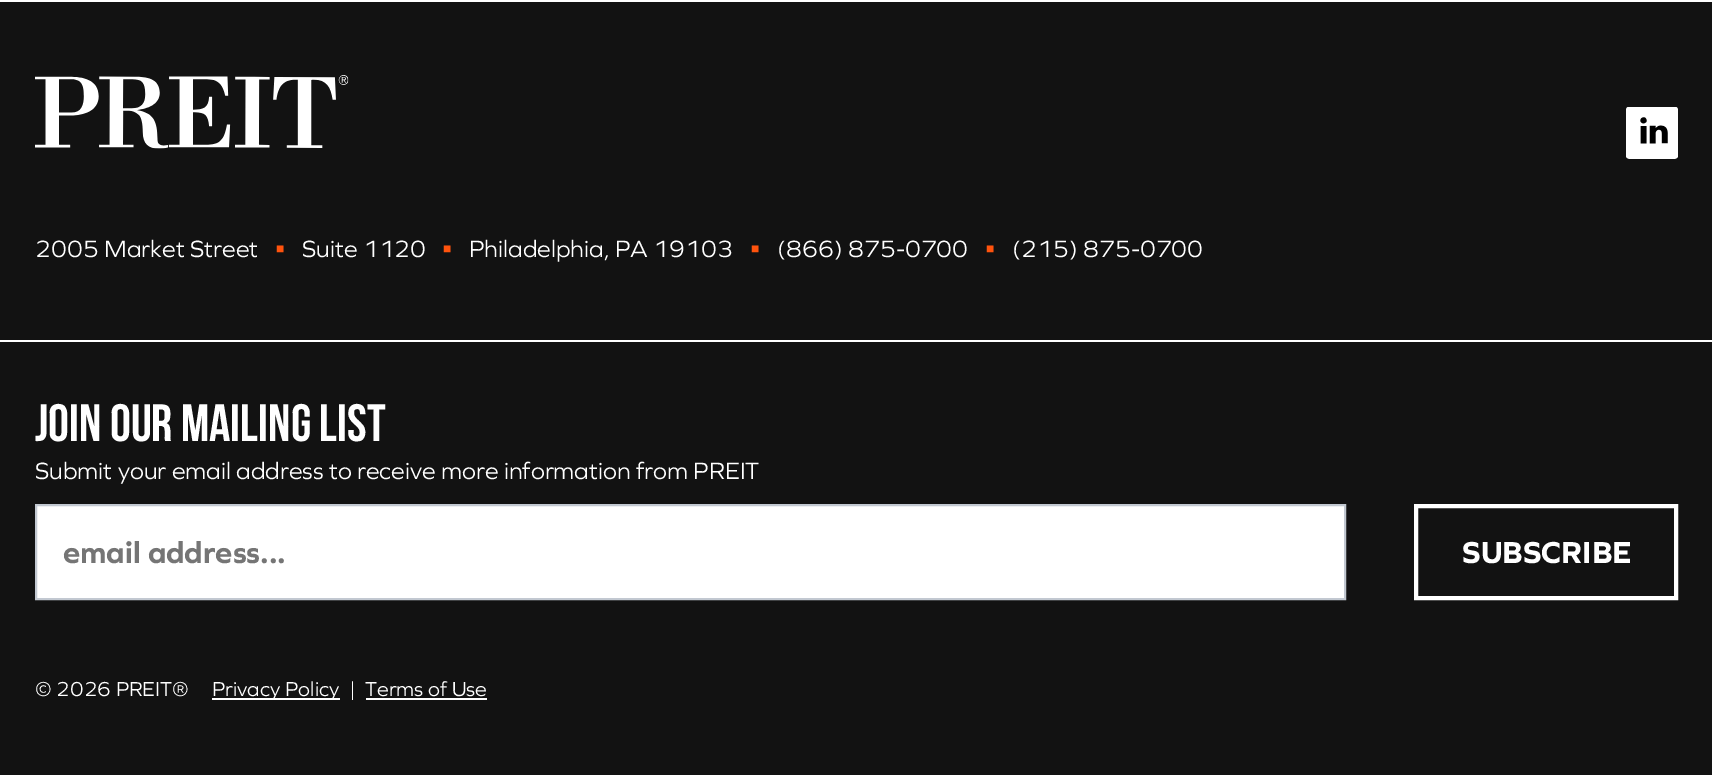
%!PS
<< /PageSize [1712 775] >> setpagedevice
/rgb { 3 { 255 div 3 1 roll } repeat setrgbcolor } def
/font { [ exch dup neg 0 0 3 -1 roll 0 0 ] selectfont } def
/text { moveto show } def
/picture { 5 dict begin { /h /w /y /x /name } { exch def } forall
  gsave x y translate w h scale
  w h 8 [w 0 0 h 0 0] name (r) file false 3 colorimage grestore end } def
0 775 translate 1 -1 scale
4 setmiterlimit
255 255 255 rgb
0 0 1712 775 rectfill
18 18 18 rgb
0 2 1712 773 rectfill
(img_01.rgb) 35 75 314 74 picture
(img_02.rgb) 1626 107 52 52 picture
255 255 255 rgb
0 340 1712 2 rectfill
36 505 moveto 1309 0 rlineto 0 94 rlineto -1309 0 rlineto closepath gsave fill grestore
194 200 209 rgb
2 setlinewidth
stroke
255 255 255 rgb
4 setlinewidth
1416 506 260 92 rectstroke
212 698 128 2 rectfill
366 698 121 2 rectfill
/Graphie-Regular 24.5 font
(2005 Market Street) 35 257 text
/LiberationSans-Regular 14 font
255 83 13 rgb
(■) 276 253 text
/Graphie-Regular 24.5 font
255 255 255 rgb
(Suite 1120) 302 257 text
/LiberationSans-Regular 14 font
255 83 13 rgb
(■) 443 253 text
/Graphie-Regular 24.5 font
255 255 255 rgb
(Philadelphia, PA 19103) 469 257 text
/LiberationSans-Regular 14 font
255 83 13 rgb
(■) 751 253 text
/Graphie-Regular 24.5 font
255 255 255 rgb
(\(866\) 875-0700) 777 257 text
/LiberationSans-Regular 14 font
255 83 13 rgb
(■) 986 253 text
/Graphie-Regular 24.5 font
255 255 255 rgb
(\(215\) 875-0700) 1012 257 text
/BebasNeue-Bold 52.5 font
(Join Our Mailing List) 35 441 text
/Graphie-Regular 24.5 font
(Submit your email address to receive more information from PREIT) 35 479 text
/Graphie-Bold 31.5 font
117 117 117 rgb
(email address...) 63 563 text
255 255 255 rgb
(SUBSCRIBE) 1462 563 text
/Graphie-Regular 21 font
(© 2026 PREIT®) 35 696 text
(Privacy Policy) 212 696 text
(|) 349 696 text
(Terms of Use) 365 696 text
showpage
